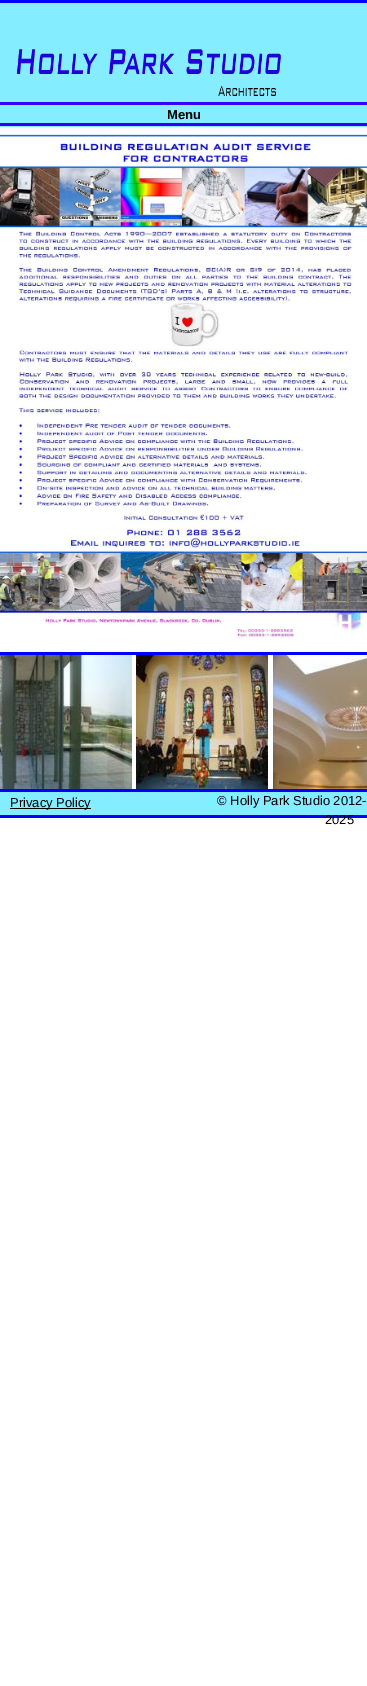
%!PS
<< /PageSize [367 1686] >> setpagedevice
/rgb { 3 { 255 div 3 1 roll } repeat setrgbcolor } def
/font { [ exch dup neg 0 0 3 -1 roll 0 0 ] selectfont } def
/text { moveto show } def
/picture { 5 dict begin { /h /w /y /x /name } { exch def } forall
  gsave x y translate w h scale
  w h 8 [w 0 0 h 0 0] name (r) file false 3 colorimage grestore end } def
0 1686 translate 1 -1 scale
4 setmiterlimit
255 255 255 rgb
0 0 367 1686 rectfill
132 237 255 rgb
0 792 367 23 rectfill
0 0 255 rgb
0 0 367 3 rectfill
0 815 367 3 rectfill
132 237 255 rgb
0 3 367 124 rectfill
(img_01.rgb) 16 49 265 47 picture
(img_02.rgb) 0 134 367 505 picture
51 0 255 rgb
0 102 367 3 rectfill
0 123 367 3 rectfill
0 0 255 rgb
0 652 367 3 rectfill
0 789 367 3 rectfill
(img_03.rgb) 0 655 132 134 picture
(img_04.rgb) 136 655 132 134 picture
(img_05.rgb) 273 655 94 134 picture
0 0 0 rgb
10 808 81 1 rectfill
/LiberationSans-Bold 13 font
(Menu) 167 119 text
/LiberationSans-Regular 13 font
(Privacy Policy) 10 807 text
(© Holly Park Studio 2012-) 217 805 text
(2025) 325 824 text
showpage
